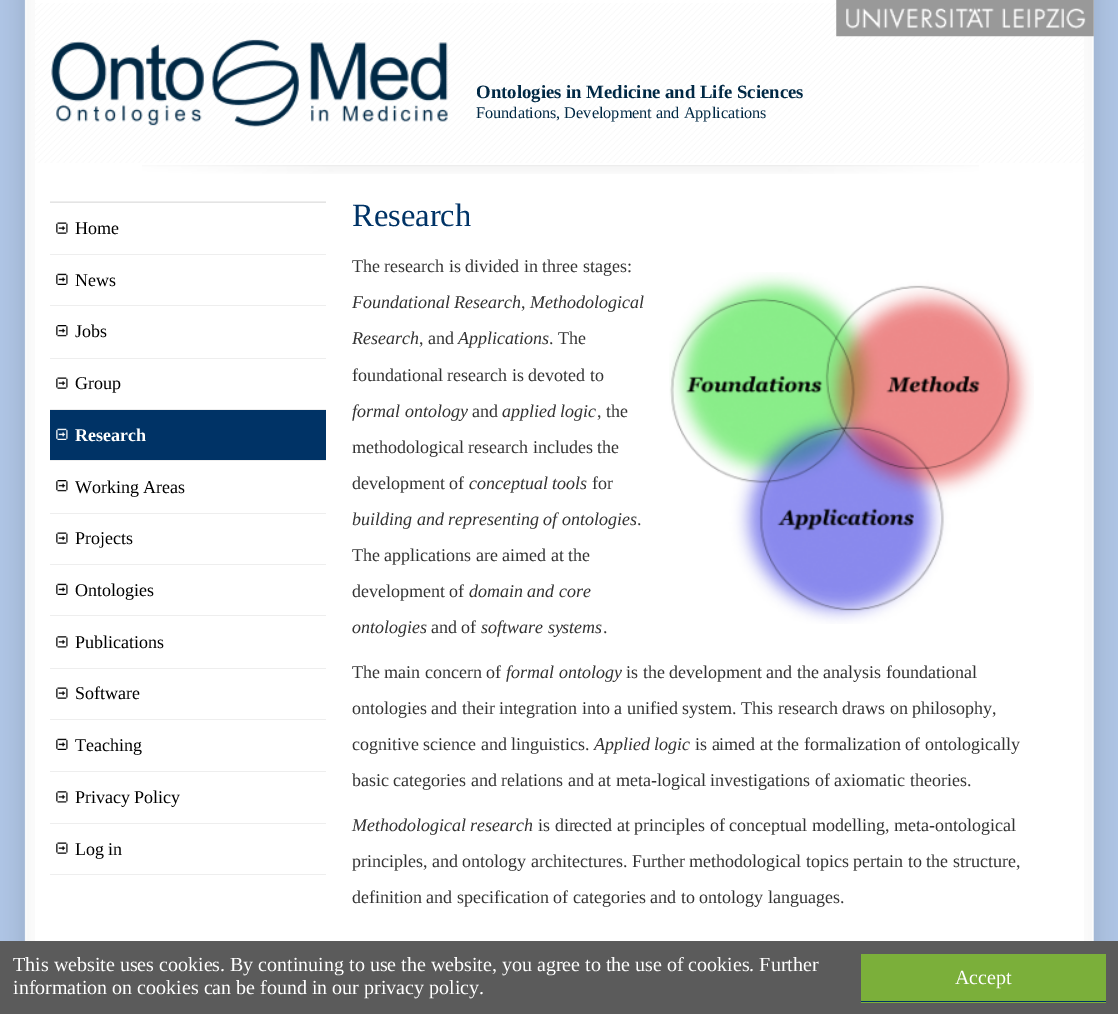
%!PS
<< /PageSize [1118 1014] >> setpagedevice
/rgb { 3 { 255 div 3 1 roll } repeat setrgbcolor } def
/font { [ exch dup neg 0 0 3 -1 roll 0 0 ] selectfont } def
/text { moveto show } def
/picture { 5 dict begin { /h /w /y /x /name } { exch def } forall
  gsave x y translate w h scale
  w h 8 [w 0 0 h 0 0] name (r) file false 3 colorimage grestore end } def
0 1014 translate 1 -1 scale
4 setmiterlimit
255 255 255 rgb
0 0 1118 1014 rectfill
(img_01.rgb) 0 0 35 941 picture
(img_02.rgb) 1084 0 34 941 picture
(img_03.rgb) 142 165 837 9 picture
(img_05.rgb) 35 3 1049 160 picture
(img_04.rgb) 836 0 258 37 picture
(img_06.rgb) 51 39 397 88 picture
228 228 228 rgb
50 202 276 1 rectfill
238 238 238 rgb
50 201 276 1 rectfill
(img_07.rgb) 56 222 12 12 picture
50 254 276 1 rectfill
(img_08.rgb) 56 273 12 12 picture
50 305 276 1 rectfill
(img_09.rgb) 56 325 12 12 picture
50 358 276 1 rectfill
(img_07.rgb) 56 377 12 12 picture
50 409 276 1 rectfill
0 51 102 rgb
50 410 276 50 rectfill
(img_10.rgb) 56 428 12 12 picture
238 238 238 rgb
50 460 276 1 rectfill
(img_09.rgb) 56 480 12 12 picture
50 513 276 1 rectfill
(img_07.rgb) 56 532 12 12 picture
50 564 276 1 rectfill
(img_08.rgb) 56 583 12 12 picture
50 615 276 1 rectfill
(img_11.rgb) 56 636 12 12 picture
50 668 276 1 rectfill
(img_07.rgb) 56 687 12 12 picture
50 719 276 1 rectfill
(img_08.rgb) 56 738 12 12 picture
50 771 276 1 rectfill
(img_11.rgb) 56 791 12 12 picture
50 823 276 1 rectfill
(img_07.rgb) 56 842 12 12 picture
50 874 276 1 rectfill
(img_12.rgb) 669 272 365 352 picture
91 91 91 rgb
0 941 1118 73 rectfill
123 175 58 rgb
861 954 245 49 rectfill
0 51 102 rgb
861 1001 245 1 rectfill
/LiberationSerif-Bold 18.75 font
1 41 69 rgb
(Ontologies in Medicine and Life Sciences) 476 98 text
/LiberationSerif-Regular 16.25 font
(Foundations, Development and Applications) 476 118 text
/LiberationSerif-Regular 18 font
0 0 0 rgb
(Home) 75 234 text
(News) 75 286 text
(Jobs) 75 337 text
(Group) 75 389 text
/LiberationSerif-Bold 18 font
255 255 255 rgb
(Research) 75 441 text
/LiberationSerif-Regular 18 font
0 0 0 rgb
(Working Areas) 75 493 text
(Projects) 75 544 text
(Ontologies) 75 596 text
(Publications) 75 648 text
(Software) 75 699 text
(Teaching) 75 751 text
(Privacy Policy) 75 803 text
(Log in) 75 855 text
/LiberationSerif-Regular 32.5 font
0 51 102 rgb
(Research) 352 226 text
/LiberationSerif-Regular 18 font
51 51 51 rgb
(The research is divided in three stages:) 352 272 text
/LiberationSerif-Italic 18 font
(Foundational Research) 352 308 text
/LiberationSerif-Regular 18 font
(,) 521 308 text
/LiberationSerif-Italic 18 font
(Methodological) 530 308 text
(Research) 352 344 text
/LiberationSerif-Regular 18 font
(, and) 419 344 text
/LiberationSerif-Italic 18 font
(Applications) 458 344 text
/LiberationSerif-Regular 18 font
(. The) 549 344 text
(foundational research is devoted to) 352 381 text
/LiberationSerif-Italic 18 font
(formal ontology) 352 417 text
/LiberationSerif-Regular 18 font
(and) 472 417 text
/LiberationSerif-Italic 18 font
(applied logic) 502 417 text
/LiberationSerif-Regular 18 font
(, the) 597 417 text
(methodological research includes the) 352 453 text
(development of) 352 489 text
/LiberationSerif-Italic 18 font
(conceptual tools) 469 489 text
/LiberationSerif-Regular 18 font
(for) 592 489 text
/LiberationSerif-Italic 18 font
(building and representing of ontologies) 352 525 text
/LiberationSerif-Regular 18 font
(.) 637 525 text
(The applications are aimed at the) 352 561 text
(development of) 352 597 text
/LiberationSerif-Italic 18 font
(domain and core) 469 597 text
(ontologies) 352 633 text
/LiberationSerif-Regular 18 font
(and of) 431 633 text
/LiberationSerif-Italic 18 font
(software systems) 481 633 text
/LiberationSerif-Regular 18 font
(.) 603 633 text
(The main concern of) 352 678 text
/LiberationSerif-Italic 18 font
(formal ontology) 506 678 text
/LiberationSerif-Regular 18 font
(is the development and the analysis foundational) 626 678 text
(ontologies and their integration into a unified system. This research draws on philosophy,) 352 714 text
(cognitive science and linguistics.) 352 750 text
/LiberationSerif-Italic 18 font
(Applied logic) 594 750 text
/LiberationSerif-Regular 18 font
(is aimed at the formalization of ontologically) 695 750 text
(basic categories and relations and at meta-logical investigations of axiomatic theories.) 352 786 text
/LiberationSerif-Italic 18 font
(Methodological research) 352 831 text
/LiberationSerif-Regular 18 font
(is directed at principles of conceptual modelling, meta-ontological) 538 831 text
(principles, and ontology architectures. Further methodological topics pertain to the structure,) 352 867 text
(definition and specification of categories and to ontology languages.) 352 903 text
gsave
13 954 836 45 rectclip
/LiberationSerif-Regular 20 font
255 255 255 rgb
(This website uses cookies. By continuing to use the website, you agree to the use of cookies. Further) 13 971 text
grestore
/LiberationSerif-Regular 20 font
255 255 255 rgb
(information on cookies can be found in our privacy policy.) 13 994 text
(Accept) 955 984 text
showpage
